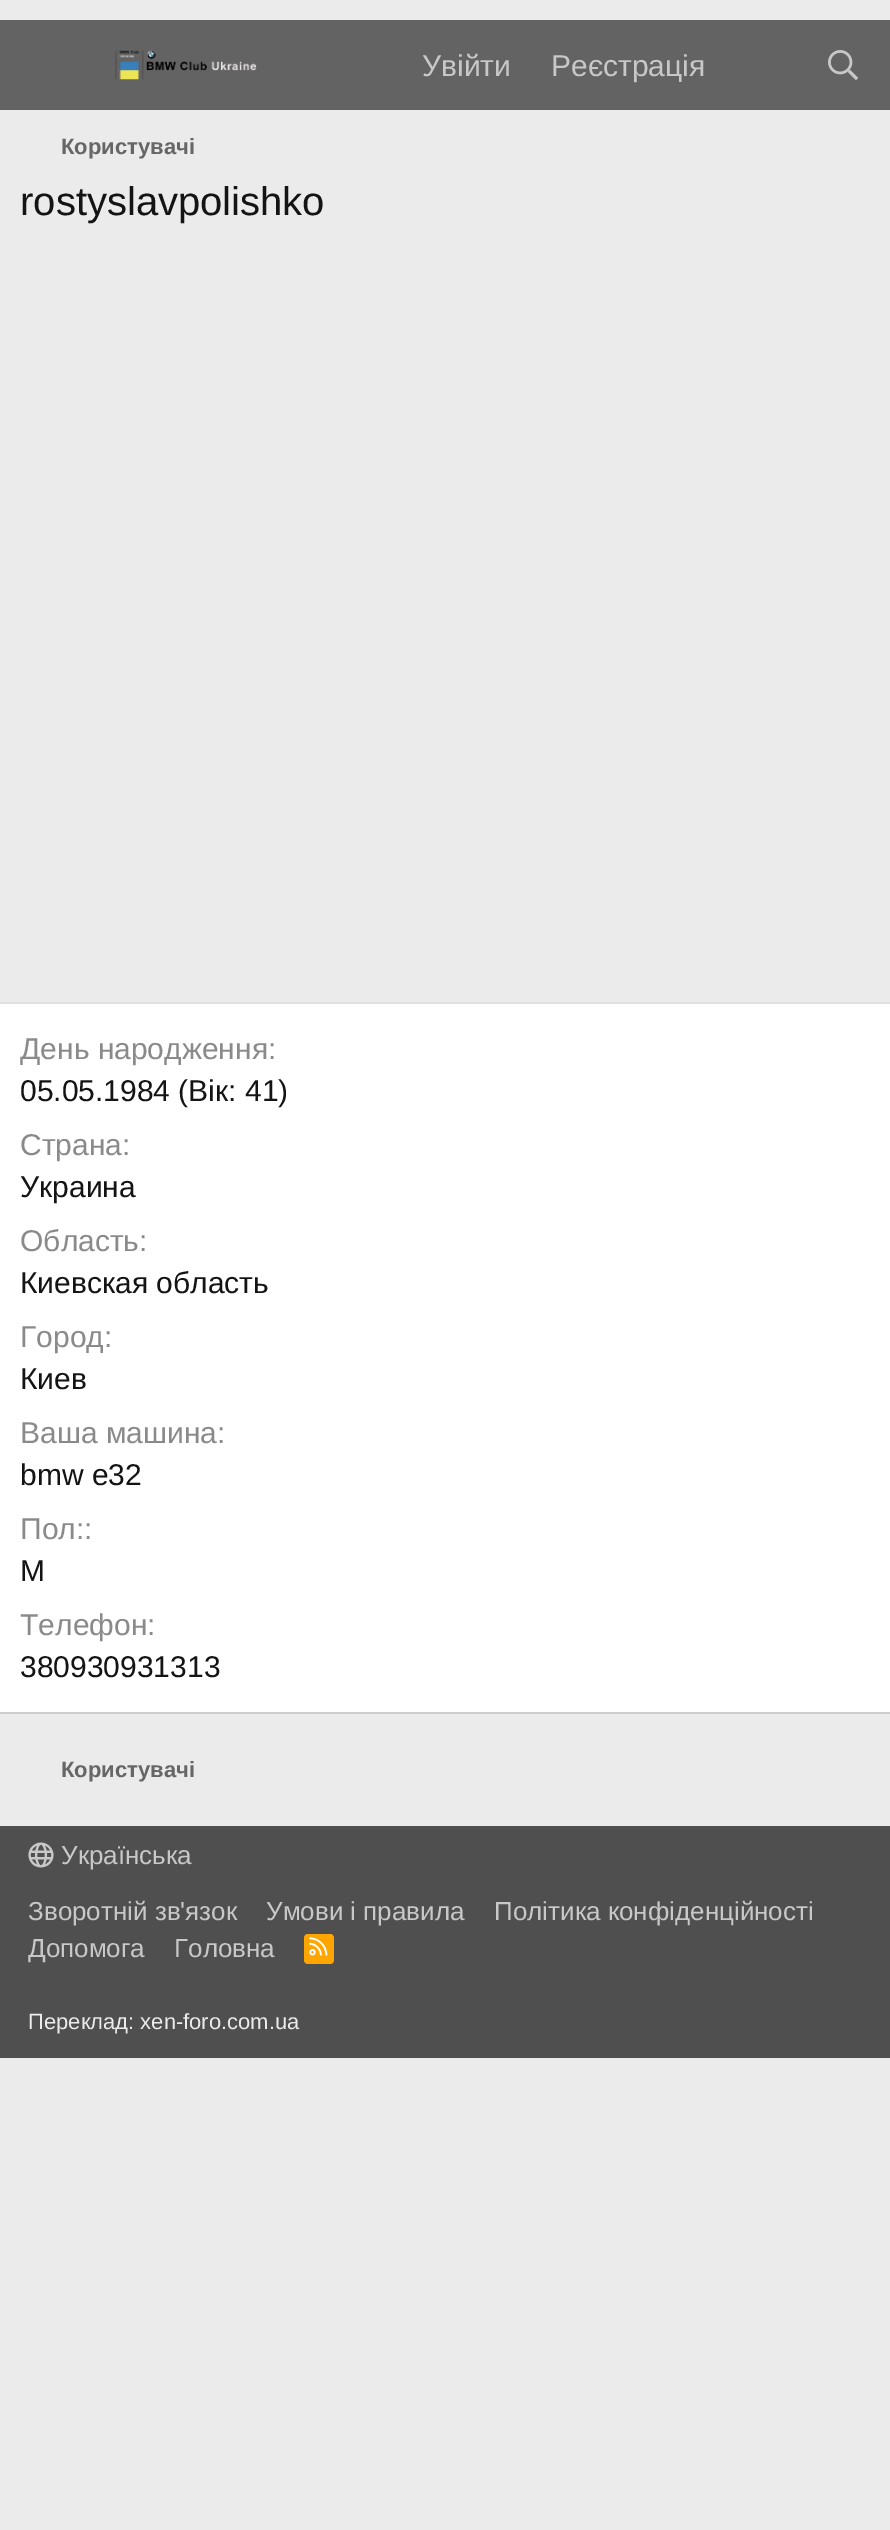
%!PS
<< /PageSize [890 2530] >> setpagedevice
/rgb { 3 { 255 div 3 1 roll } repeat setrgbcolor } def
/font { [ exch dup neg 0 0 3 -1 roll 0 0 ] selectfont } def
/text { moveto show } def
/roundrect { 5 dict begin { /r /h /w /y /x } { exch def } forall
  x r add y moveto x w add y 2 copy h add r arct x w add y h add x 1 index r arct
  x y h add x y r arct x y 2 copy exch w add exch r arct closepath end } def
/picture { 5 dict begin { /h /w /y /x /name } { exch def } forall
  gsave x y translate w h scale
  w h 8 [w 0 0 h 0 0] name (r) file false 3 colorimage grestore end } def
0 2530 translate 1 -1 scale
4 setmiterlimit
235 235 235 rgb
0 0 890 2530 rectfill
99 99 99 rgb
0 20 890 90 rectfill
(img_01.rgb) 115 50 142 30 picture
(img_02.rgb) 828 50 30 30 picture
255 255 255 rgb
0 1004 890 708 rectfill
224 224 224 rgb
0 1002 890 2 rectfill
204 204 204 rgb
0 1712 890 2 rectfill
79 79 79 rgb
0 1826 890 232 rectfill
(img_03.rgb) 28 1842 26 26 picture
255 165 0 rgb
304 1934 30 30 4 roundrect fill
(img_04.rgb) 309 1937 19 19 picture
/LiberationSans-Regular 30 font
200 200 200 rgb
(Увійти) 422 76 text
(Реєстрація) 551 76 text
/LiberationSans-Bold 22 font
103 102 102 rgb
(Користувачі) 61 154 text
/LiberationSans-Regular 40 font
20 20 20 rgb
(rostyslavpolishko) 20 215 text
/LiberationSans-Regular 30 font
138 138 138 rgb
(День народження:) 20 1059 text
20 20 20 rgb
(05.05.1984 \(Вік: 41\)) 20 1101 text
138 138 138 rgb
(Страна:) 20 1155 text
20 20 20 rgb
(Украина) 20 1197 text
138 138 138 rgb
(Область:) 20 1251 text
20 20 20 rgb
(Киевская область) 20 1293 text
138 138 138 rgb
(Город:) 20 1347 text
20 20 20 rgb
(Киев) 20 1389 text
138 138 138 rgb
(Ваша машина:) 20 1443 text
20 20 20 rgb
(bmw e32) 20 1485 text
138 138 138 rgb
(Пол::) 20 1539 text
20 20 20 rgb
(М) 20 1581 text
138 138 138 rgb
(Телефон:) 20 1635 text
20 20 20 rgb
(380930931313) 20 1677 text
/LiberationSans-Bold 22 font
103 102 102 rgb
(Користувачі) 61 1777 text
/LiberationSans-Regular 26 font
200 200 200 rgb
(Українська) 61 1864 text
(Зворотній зв'язок) 28 1920 text
(Умови і правила) 266 1920 text
(Політика конфіденційності) 494 1920 text
(Дoпoмoга) 28 1957 text
(Головна) 174 1957 text
/LiberationSans-Regular 22 font
235 235 235 rgb
(Переклад: xen-foro.com.ua) 28 2029 text
showpage
